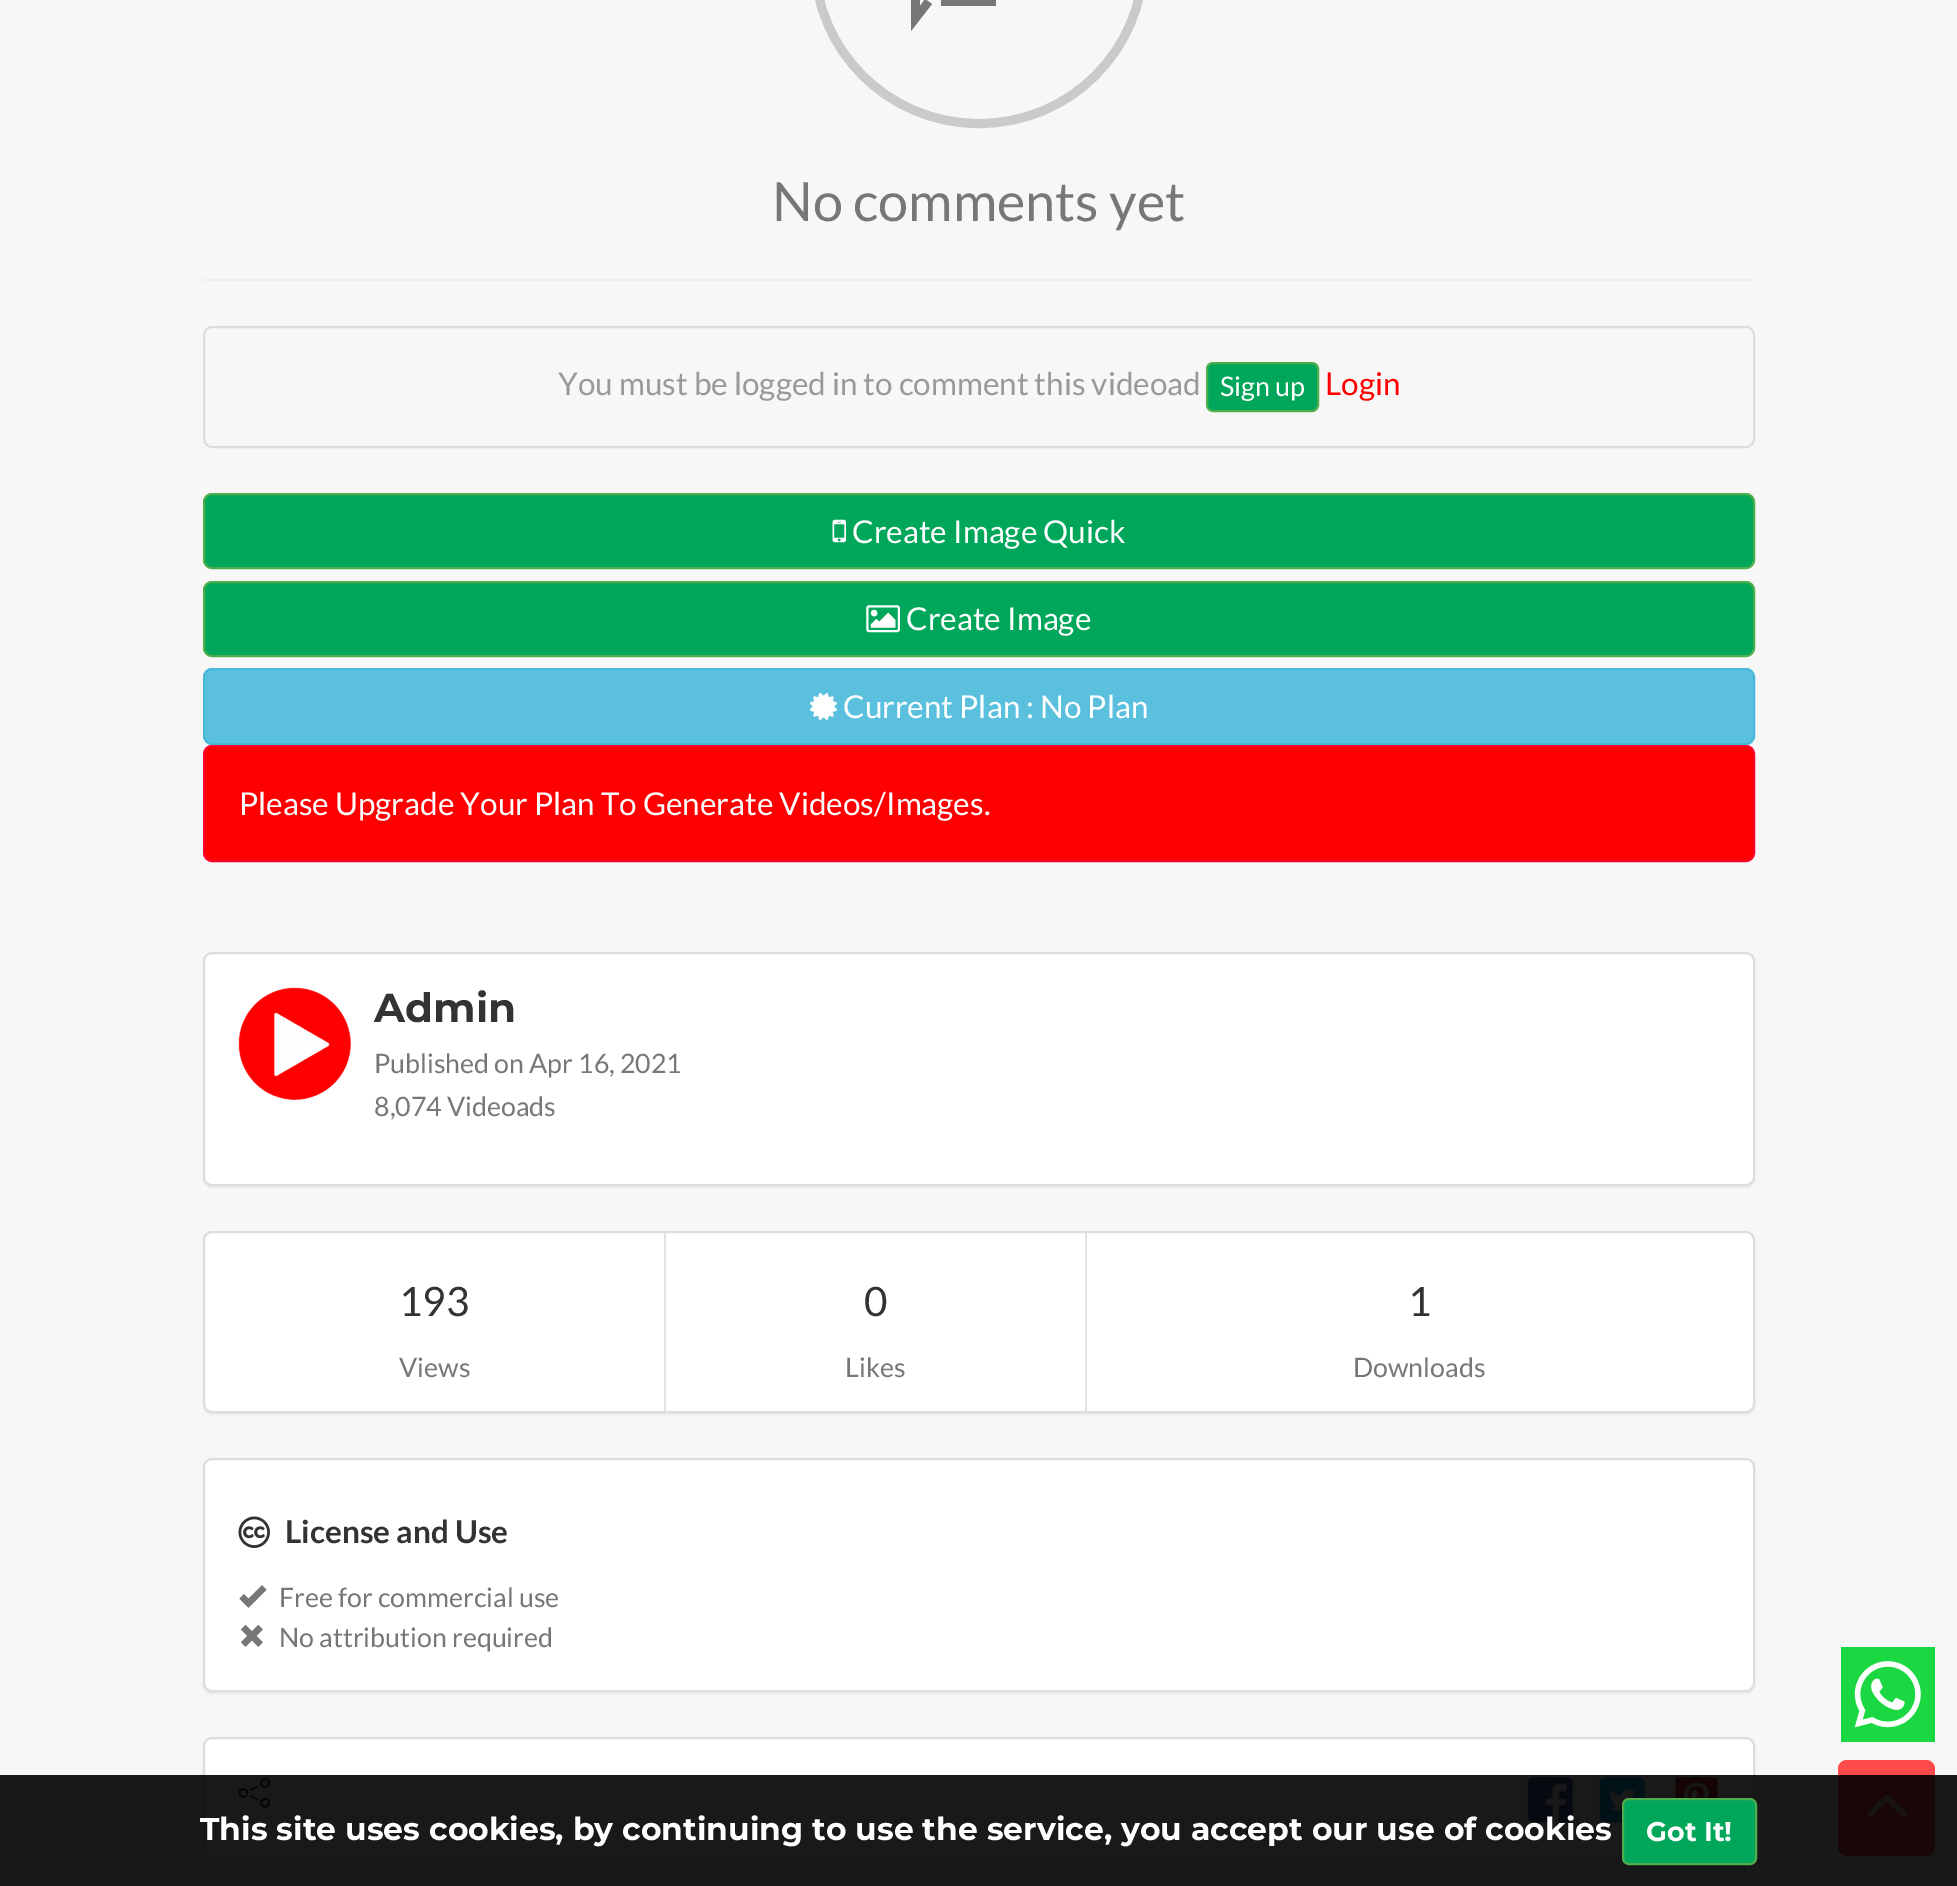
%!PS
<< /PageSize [1957 1886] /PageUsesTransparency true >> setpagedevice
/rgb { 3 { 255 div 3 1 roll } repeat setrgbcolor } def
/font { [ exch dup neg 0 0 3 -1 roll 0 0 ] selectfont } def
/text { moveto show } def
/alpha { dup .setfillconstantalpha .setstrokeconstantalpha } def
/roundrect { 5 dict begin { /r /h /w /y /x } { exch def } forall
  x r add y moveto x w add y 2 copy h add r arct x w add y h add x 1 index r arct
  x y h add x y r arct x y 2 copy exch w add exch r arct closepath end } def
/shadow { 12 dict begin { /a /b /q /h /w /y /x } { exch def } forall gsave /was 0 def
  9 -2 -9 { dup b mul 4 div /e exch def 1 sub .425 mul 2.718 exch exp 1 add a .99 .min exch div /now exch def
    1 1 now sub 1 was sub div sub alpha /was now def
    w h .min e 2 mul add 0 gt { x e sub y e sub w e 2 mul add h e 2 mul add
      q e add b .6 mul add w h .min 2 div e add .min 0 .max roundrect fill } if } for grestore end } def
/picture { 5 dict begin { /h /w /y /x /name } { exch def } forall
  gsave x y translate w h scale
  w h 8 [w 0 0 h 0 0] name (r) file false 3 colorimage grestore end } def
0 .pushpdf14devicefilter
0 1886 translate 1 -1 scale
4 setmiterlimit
247 247 247 rgb
0 0 1957 1886 rectfill
202 202 202 rgb
9 setlinewidth
814.5 -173.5 329 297 164 roundrect stroke
119 119 119 rgb
1046 -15 moveto -42 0 rlineto 0 -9 rlineto 34 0 rlineto 0 -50 rlineto -68 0 rlineto 0 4 rlineto -8 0 rlineto 0 -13 rlineto 84 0 rlineto closepath 1004 -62 moveto 25 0 rlineto 0 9 rlineto -25 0 rlineto closepath 1004 -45 moveto 25 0 rlineto 0 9 rlineto -25 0 rlineto closepath 928 -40 moveto 51 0 rlineto 0 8 rlineto -51 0 rlineto closepath 928 -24 moveto 34 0 rlineto 0 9 rlineto -34 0 rlineto closepath 911 31 moveto 0 -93 rlineto 85 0 rlineto 0 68 rlineto -55 0 rlineto 0 -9 rlineto 46 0 rlineto 0 -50 rlineto -67 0 rlineto 0 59 rlineto 5 -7 rlineto 7 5 rlineto closepath fill
238 238 238 rgb
203 279 1552 2 rectfill
221 221 221 rgb
2 setlinewidth
204 327 1550 120 8 roundrect stroke
0 166 90 rgb
1207 363 111 48 6 roundrect gsave fill grestore
76 174 76 rgb
stroke
0 166 90 rgb
204 494 1550 74 8 roundrect gsave fill grestore
76 174 76 rgb
stroke
(img_01.rgb) 832 519 14 24 picture
0 166 90 rgb
204 582 1550 74 8 roundrect gsave fill grestore
76 174 76 rgb
stroke
(img_02.rgb) 866 605 34 28 picture
91 192 222 rgb
204 669 1550 75 8 roundrect gsave fill grestore
70 184 218 rgb
stroke
(img_03.rgb) 810 693 27 27 picture
255 0 0 rgb
204 746 1550 115 8 roundrect gsave fill grestore
255 1 42 rgb
stroke
0 0 0 rgb
203 954 1552 234 9 1 0.05 shadow
255 255 255 rgb
204 953 1550 232 8 roundrect gsave fill grestore
221 221 221 rgb
stroke
(img_04.rgb) 238 987 113 113 picture
0 0 0 rgb
203 1233 1552 182 9 1 0.05 shadow
255 255 255 rgb
204 1232 1550 180 8 roundrect gsave fill grestore
221 221 221 rgb
stroke
227 227 227 rgb
664 1233 2 178 rectfill
1085 1233 2 178 rectfill
0 0 0 rgb
203 1460 1552 234 9 1 0.05 shadow
255 255 255 rgb
204 1459 1550 232 8 roundrect gsave fill grestore
221 221 221 rgb
stroke
(img_05.rgb) 238 1516 32 32 picture
(img_06.rgb) 239 1585 28 23 picture
(img_07.rgb) 241 1625 22 22 picture
0 0 0 rgb
203 1739 1552 122 9 1 0.05 shadow
255 255 255 rgb
204 1738 1550 120 8 roundrect gsave fill grestore
221 221 221 rgb
stroke
(img_08.rgb) 238 1778 32 30 picture
(img_09.rgb) 1527 1777 46 46 picture
(img_10.rgb) 1599 1777 46 46 picture
(img_11.rgb) 1675 1777 43 21 picture
(img_12.rgb) 1841 1647 94 95 picture
253 74 74 rgb
1838 1760 97 96 9 roundrect fill
(img_13.rgb) 1867 1794 40 23 picture
0.9 alpha
0 0 0 rgb
0 1775 1957 111 rectfill
1 alpha
0 166 90 rgb
1623 1799 133 65 6 roundrect gsave fill grestore
76 174 76 rgb
stroke
/Lato-Regular 54 font
119 119 119 rgb
(No comments yet) 772 221 text
/Lato-Regular 31.5 font
153 153 153 rgb
(You must be logged in to comment this videoad) 558 395 text
/Lato-Regular 27 font
255 255 255 rgb
(Sign up) 1220 396 text
/Lato-Regular 31.5 font
255 0 0 rgb
(Login) 1325 395 text
255 255 255 rgb
(Create Image Quick) 852 543 text
(Create Image) 906 630 text
(Current Plan : No Plan) 843 718 text
(Please Upgrade Your Plan To Generate Videos/Images.) 239 815 text
/Montserrat-Thin 40.5 font
51 51 51 rgb
(Admin) 374 1022 text
/Lato-Regular 26.75 font
119 119 119 rgb
(Published on Apr 16, 2021) 374 1073 text
(8,074 Videoads) 374 1116 text
/Lato-Regular 40.5 font
51 51 51 rgb
(193) 399 1316 text
/Lato-Regular 26.75 font
119 119 119 rgb
(Views) 399 1377 text
/Lato-Regular 40.5 font
51 51 51 rgb
(0) 864 1316 text
/Lato-Regular 26.75 font
119 119 119 rgb
(Likes) 845 1377 text
/Lato-Regular 40.5 font
51 51 51 rgb
(1) 1408 1316 text
/Lato-Regular 26.75 font
119 119 119 rgb
(Downloads) 1353 1377 text
/Lato-Bold 31.5 font
51 51 51 rgb
(License and Use) 285 1543 text
/Lato-Regular 26.75 font
119 119 119 rgb
(Free for commercial use) 279 1607 text
(No attribution required) 279 1647 text
/Montserrat-Thin 31.5 font
255 255 255 rgb
(This site uses cookies, by continuing to use the service, you accept our use of cookies) 200 1840 text
/Montserrat-Thin 27 font
(Got It!) 1646 1841 text
.poppdf14devicefilter showpage
